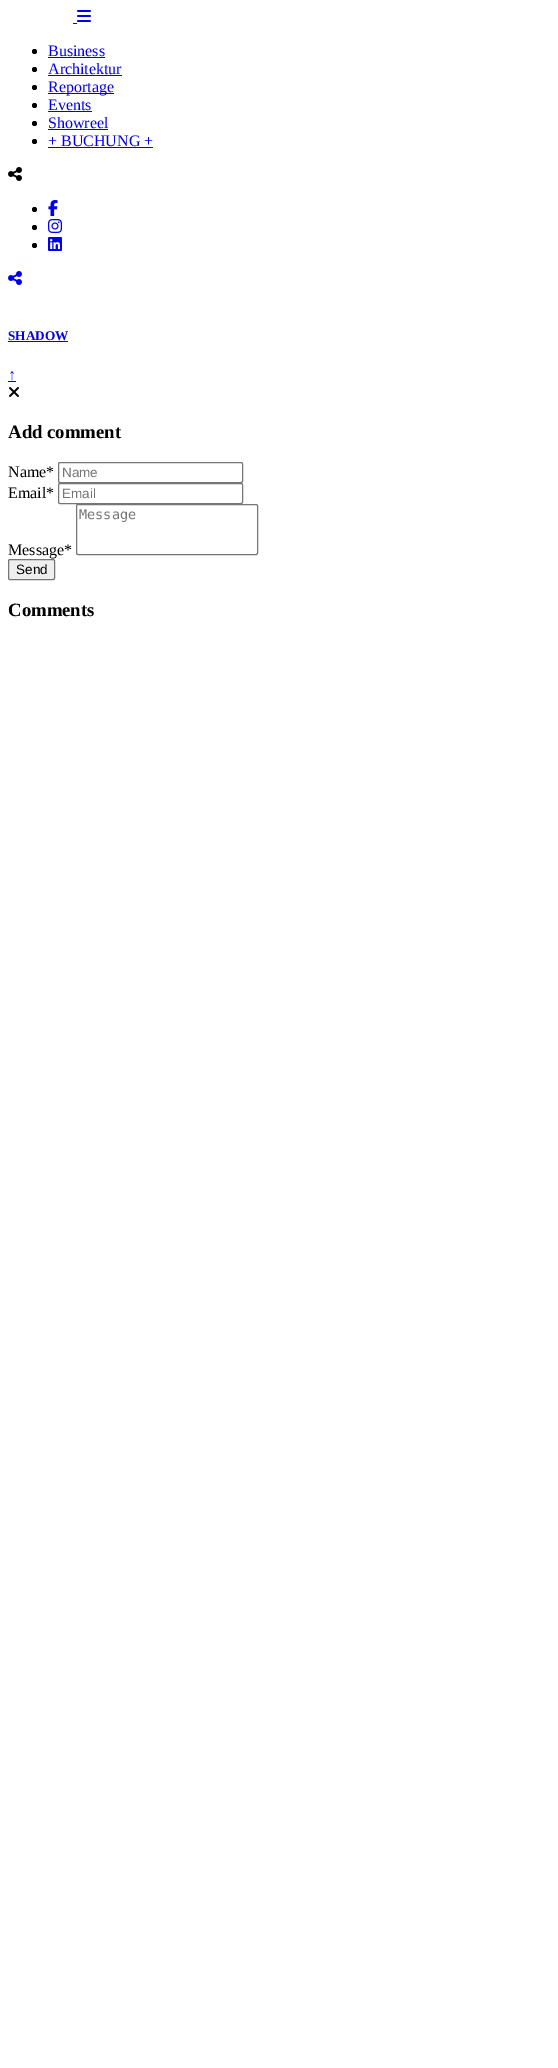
%!PS
<< /PageSize [558 2068] >> setpagedevice
/rgb { 3 { 255 div 3 1 roll } repeat setrgbcolor } def
/font { [ exch dup neg 0 0 3 -1 roll 0 0 ] selectfont } def
/text { moveto show } def
/circle { newpath 0 360 arc closepath } def
/roundrect { 5 dict begin { /r /h /w /y /x } { exch def } forall
  x r add y moveto x w add y 2 copy h add r arct x w add y h add x 1 index r arct
  x y h add x y r arct x y 2 copy exch w add exch r arct closepath end } def
/picture { 5 dict begin { /h /w /y /x /name } { exch def } forall
  gsave x y translate w h scale
  w h 8 [w 0 0 h 0 0] name (r) file false 3 colorimage grestore end } def
0 2068 translate 1 -1 scale
4 setmiterlimit
255 255 255 rgb
0 0 558 2068 rectfill
(img_01.rgb) 77 10 14 12 picture
0 0 238 rgb
73 23 4 1 rectfill
0 0 0 rgb
34.5 51.5 2.5 circle fill
0 0 238 rgb
48 57 57 1 rectfill
0 0 0 rgb
34.5 69.5 2.5 circle fill
0 0 238 rgb
48 75 74 1 rectfill
0 0 0 rgb
34.5 87.5 2.5 circle fill
0 0 238 rgb
48 93 66 1 rectfill
0 0 0 rgb
34.5 105.5 2.5 circle fill
0 0 238 rgb
48 111 44 1 rectfill
0 0 0 rgb
34.5 123.5 2.5 circle fill
0 0 238 rgb
48 129 60 1 rectfill
0 0 0 rgb
34.5 141.5 2.5 circle fill
0 0 238 rgb
48 147 105 1 rectfill
(img_02.rgb) 8 167 14 14 picture
0 0 0 rgb
34.5 209.5 2.5 circle fill
(img_03.rgb) 48 200 10 16 picture
34.5 227.5 2.5 circle fill
(img_04.rgb) 48 219 14 14 picture
34.5 245.5 2.5 circle fill
(img_05.rgb) 48 237 14 14 picture
(img_06.rgb) 8 271 14 14 picture
0 0 238 rgb
8 341 60 1 rectfill
8 381 8 1 rectfill
(img_07.rgb) 9 387 10 10 picture
118 118 118 rgb
58.5 462.5 184 20 1.5 roundrect stroke
58.5 483.5 184 20 1.5 roundrect stroke
76.5 504.5 181 50 1.5 roundrect stroke
239 239 239 rgb
8.5 559.5 46 20 1.5 roundrect gsave fill grestore
118 118 118 rgb
stroke
/LiberationSerif-Regular 16 font
0 0 238 rgb
(Business) 48 56 text
(Architektur) 48 74 text
(Reportage) 48 92 text
(Events) 48 110 text
(Showreel) 48 128 text
(+ BUCHUNG +) 48 146 text
/LiberationSerif-Bold 13.25 font
(SHADOW) 8 340 text
/LiberationSerif-Regular 16 font
(↑) 8 380 text
/LiberationSerif-Bold 18.75 font
0 0 0 rgb
(Add comment) 8 438 text
/LiberationSerif-Regular 16 font
(Name*) 8 477 text
/LiberationSans-Regular 13.5 font
117 117 117 rgb
(Name) 62 477 text
/LiberationSerif-Regular 16 font
0 0 0 rgb
(Email*) 8 498 text
/LiberationSans-Regular 13.5 font
117 117 117 rgb
(Email) 62 498 text
/DejaVuSansMono-Regular 13.5 font
(Message) 79 519 text
/LiberationSerif-Regular 16 font
0 0 0 rgb
(Message*) 8 555 text
/LiberationSans-Regular 13.5 font
(Send) 16 574 text
/LiberationSerif-Bold 18.75 font
(Comments) 8 616 text
showpage
